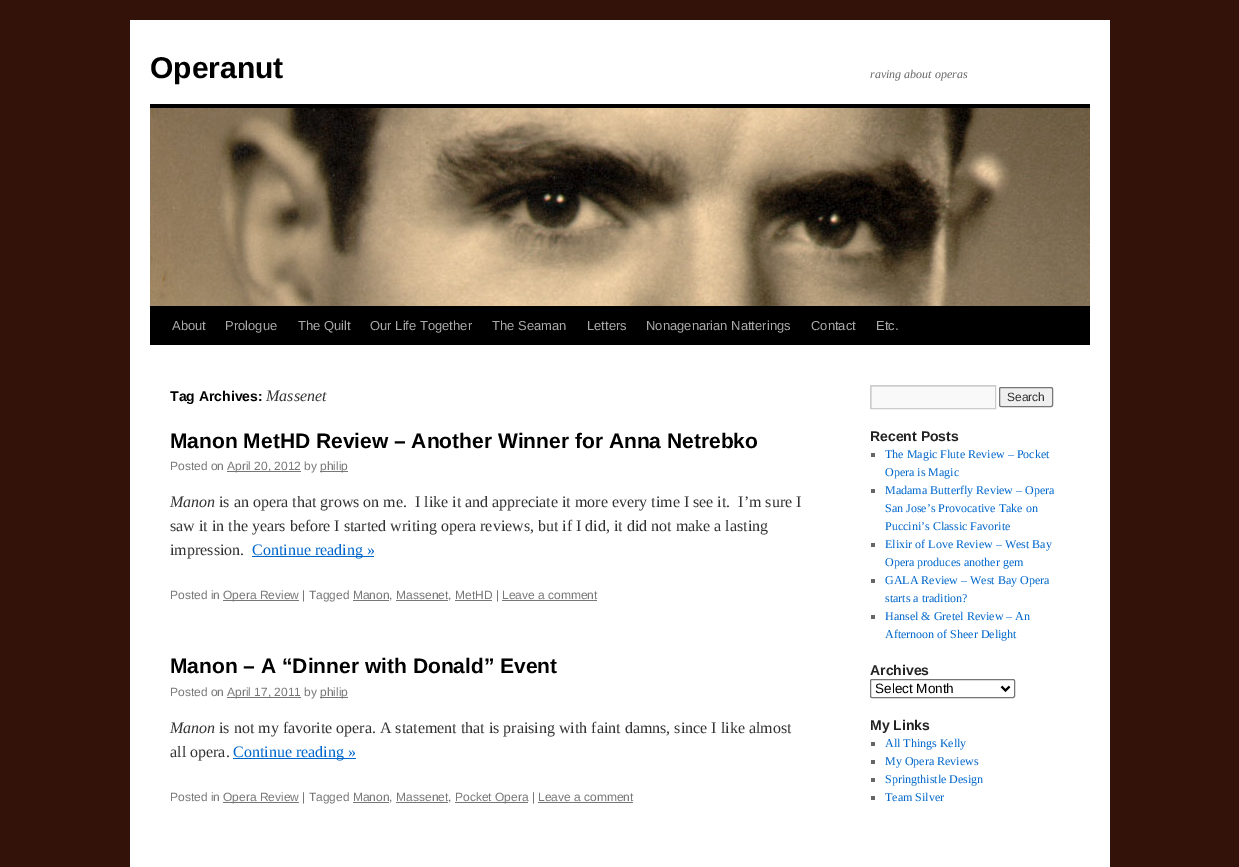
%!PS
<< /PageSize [1239 867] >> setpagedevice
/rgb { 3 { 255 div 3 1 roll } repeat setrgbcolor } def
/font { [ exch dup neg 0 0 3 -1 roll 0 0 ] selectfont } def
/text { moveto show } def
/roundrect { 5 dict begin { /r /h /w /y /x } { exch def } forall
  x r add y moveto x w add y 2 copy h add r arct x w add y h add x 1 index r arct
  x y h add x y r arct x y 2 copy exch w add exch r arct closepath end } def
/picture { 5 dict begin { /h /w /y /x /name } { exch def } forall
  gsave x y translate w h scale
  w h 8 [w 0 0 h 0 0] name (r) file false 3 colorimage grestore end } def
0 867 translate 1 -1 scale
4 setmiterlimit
51 18 9 rgb
0 0 1239 867 rectfill
255 255 255 rgb
130 20 980 847 rectfill
0 0 0 rgb
150 104 940 4 rectfill
150 306 940 39 rectfill
(img_01.rgb) 150 108 940 198 picture
119 119 119 rgb
227 471 74 1 rectfill
320 471 28 1 rectfill
0 102 204 rgb
252 556 122 1 rectfill
119 119 119 rgb
223 600 76 1 rectfill
353 600 36 1 rectfill
396 600 52 1 rectfill
455 600 37 1 rectfill
502 600 95 1 rectfill
227 697 74 1 rectfill
320 697 28 1 rectfill
0 102 204 rgb
233 758 123 1 rectfill
119 119 119 rgb
223 802 76 1 rectfill
353 802 36 1 rectfill
396 802 52 1 rectfill
455 802 73 1 rectfill
538 802 95 1 rectfill
249 249 249 rgb
872 387 123 21 rectfill
gsave
871 386 124 22 rectclip
224 224 224 rgb
772 287 moveto 322 0 rlineto 0 220 rlineto -322 0 rlineto closepath 872 387 moveto 124 0 rlineto 0 22 rlineto -124 0 rlineto closepath eofill
grestore
204 204 204 rgb
870.5 385.5 125 23 rectstroke
239 239 239 rgb
999.5 387.5 53 19 1.5 roundrect gsave fill grestore
118 118 118 rgb
stroke
102 102 102 rgb
871 453 4 4 rectfill
871 489 4 4 rectfill
871 543 4 4 rectfill
871 579 4 4 rectfill
871 615 4 4 rectfill
118 118 118 rgb
870.5 679.5 144 18 1.5 roundrect stroke
0 0 0 rgb
2 setlinewidth
1001.5 686.5 moveto 4 4 rlineto 4 -4 rlineto stroke
102 102 102 rgb
871 742 4 4 rectfill
871 760 4 4 rectfill
871 778 4 4 rectfill
871 796 4 4 rectfill
/LiberationSans-Bold 30 font
0 0 0 rgb
(Operanut) 150 78 text
/LiberationSerif-Italic 12 font
102 102 102 rgb
(raving about operas) 870 78 text
/LiberationSans-Regular 13 font
170 170 170 rgb
(About) 172 330 text
(Prologue) 225 330 text
(The Quilt) 298 330 text
(Our Life Together) 370 330 text
(The Seaman) 492 330 text
(Letters) 587 330 text
(Nonagenarian Natterings) 646 330 text
(Contact) 811 330 text
(Etc.) 876 330 text
/LiberationSans-Bold 14 font
0 0 0 rgb
(Tag Archives:) 170 401 text
/LiberationSerif-Italic 16 font
51 51 51 rgb
(Massenet) 266 401 text
/LiberationSans-Bold 21 font
0 0 0 rgb
(Manon MetHD Review – Another Winner for Anna Netrebko) 170 448 text
/LiberationSans-Regular 12 font
119 119 119 rgb
(Posted on) 170 470 text
(April 20, 2012 by) 227 470 text
(philip) 320 470 text
/LiberationSerif-Italic 16 font
51 51 51 rgb
(Manon) 170 507 text
/LiberationSerif-Regular 16 font
(is an opera that grows on me.  I like it and appreciate it more every time I see it.  I’m sure I) 219 507 text
(saw it in the years before I started writing opera reviews, but if I did, it did not make a lasting) 170 531 text
(impression.) 170 555 text
0 102 204 rgb
(Continue reading ») 252 555 text
/LiberationSans-Regular 12 font
119 119 119 rgb
(Posted in) 170 599 text
(Opera Review | Tagged Manon, Massenet, MetHD | Leave a comment) 223 599 text
/LiberationSans-Bold 21 font
0 0 0 rgb
(Manon – A “Dinner with Donald” Event) 170 673 text
/LiberationSans-Regular 12 font
119 119 119 rgb
(Posted on) 170 696 text
(April 17, 2011 by) 227 696 text
(philip) 320 696 text
/LiberationSerif-Italic 16 font
51 51 51 rgb
(Manon) 170 733 text
/LiberationSerif-Regular 16 font
(is not my favorite opera. A statement that is praising with faint damns, since I like almost) 219 733 text
(all opera.) 170 757 text
0 102 204 rgb
(Continue reading ») 233 757 text
/LiberationSans-Regular 12 font
119 119 119 rgb
(Posted in) 170 801 text
(Opera Review | Tagged Manon, Massenet,) 223 801 text
(Pocket Opera | Leave a comment) 455 801 text
51 51 51 rgb
(Search) 1007 401 text
/LiberationSans-Bold 14 font
34 34 34 rgb
(Recent Posts) 870 441 text
/LiberationSerif-Regular 12 font
0 102 204 rgb
(The Magic Flute Review – Pocket) 885 458 text
(Opera is Magic) 885 476 text
(Madama Butterfly Review – Opera) 885 494 text
(San Jose’s Provocative Take on) 885 512 text
(Puccini’s Classic Favorite) 885 530 text
(Elixir of Love Review – West Bay) 885 548 text
(Opera produces another gem) 885 566 text
(GALA Review – West Bay Opera) 885 584 text
(starts a tradition?) 885 602 text
(Hansel & Gretel Review – An) 885 620 text
(Afternoon of Sheer Delight) 885 638 text
/LiberationSans-Bold 14 font
34 34 34 rgb
(Archives) 870 675 text
/LiberationSans-Regular 13.5 font
0 0 0 rgb
(Select Month) 875 693 text
/LiberationSans-Bold 14 font
34 34 34 rgb
(My Links) 870 730 text
/LiberationSerif-Regular 12 font
0 102 204 rgb
(All Things Kelly) 885 747 text
(My Opera Reviews) 885 765 text
(Springthistle Design) 885 783 text
(Team Silver) 885 801 text
showpage
